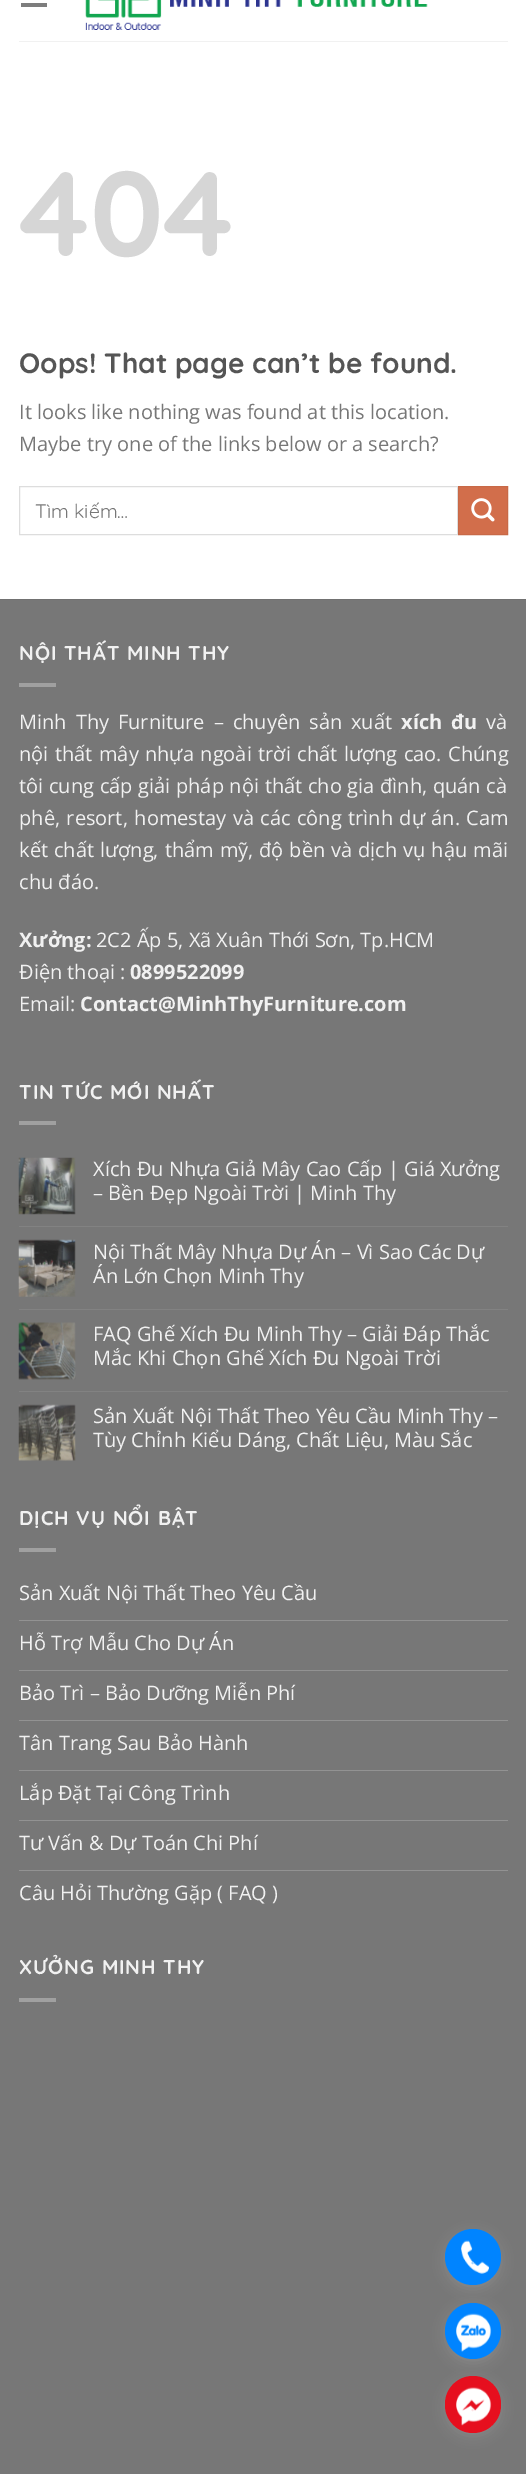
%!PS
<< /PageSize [526 2474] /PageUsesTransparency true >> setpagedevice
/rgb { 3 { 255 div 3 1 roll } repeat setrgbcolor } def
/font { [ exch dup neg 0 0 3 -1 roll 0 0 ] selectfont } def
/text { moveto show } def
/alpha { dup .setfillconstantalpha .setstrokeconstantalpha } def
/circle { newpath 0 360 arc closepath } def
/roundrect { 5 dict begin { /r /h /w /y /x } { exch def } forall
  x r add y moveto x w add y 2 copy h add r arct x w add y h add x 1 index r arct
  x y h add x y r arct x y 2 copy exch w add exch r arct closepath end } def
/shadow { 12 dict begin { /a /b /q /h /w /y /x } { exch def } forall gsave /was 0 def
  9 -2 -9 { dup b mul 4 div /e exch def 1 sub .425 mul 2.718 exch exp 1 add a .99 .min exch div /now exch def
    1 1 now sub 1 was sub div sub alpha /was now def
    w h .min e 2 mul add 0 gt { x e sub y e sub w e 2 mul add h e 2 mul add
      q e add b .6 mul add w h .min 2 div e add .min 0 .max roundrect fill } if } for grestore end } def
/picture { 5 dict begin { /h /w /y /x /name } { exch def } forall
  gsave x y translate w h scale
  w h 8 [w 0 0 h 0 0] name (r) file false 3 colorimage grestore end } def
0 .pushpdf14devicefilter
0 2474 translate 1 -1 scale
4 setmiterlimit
255 255 255 rgb
0 0 526 2474 rectfill
125 125 125 rgb
21 3 26 4 rectfill
(img_01.rgb) 85 0 343 30 picture
241 241 241 rgb
19 41 489 1 rectfill
221 221 221 rgb
19.5 486.5 438 48 rectstroke
210 110 75 rgb
458.5 486.5 moveto 49 0 rlineto 0 48 rlineto -49 0 rlineto closepath gsave fill grestore
200 105 71 rgb
stroke
(img_02.rgb) 471 498 24 24 picture
119 119 119 rgb
0 600 526 1874 rectfill
113 113 113 rgb
0 599 526 1 rectfill
160 160 160 rgb
19 683 37 4 rectfill
19 1121 37 4 rectfill
(img_03.rgb) 18 1157 58 58 picture
130 130 130 rgb
19 1226 489 1 rectfill
(img_04.rgb) 18 1239 58 58 picture
19 1309 489 1 rectfill
(img_05.rgb) 18 1322 58 58 picture
19 1391 489 1 rectfill
(img_06.rgb) 18 1404 58 57 picture
160 160 160 rgb
19 1548 37 4 rectfill
146 146 146 rgb
19 1620 489 1 rectfill
19 1670 489 1 rectfill
19 1720 489 1 rectfill
19 1770 489 1 rectfill
19 1820 489 1 rectfill
19 1870 489 1 rectfill
160 160 160 rgb
19 1998 37 4 rectfill
136 136 136 rgb
445 2233 56 56 28 6 1 shadow
0 132 255 rgb
473 2257 28 circle fill
(img_07.rgb) 461 2240 28 34 picture
136 136 136 rgb
445 2306 56 57 28 6 1 shadow
0 132 255 rgb
473 2331 28 circle fill
(img_08.rgb) 456 2313 36 39 picture
136 136 136 rgb
445 2380 56 56 28 6 1 shadow
230 15 30 rgb
445 2376 56 57 28 roundrect fill
(img_09.rgb) 456 2387 36 39 picture
/Quicksand-Bold 120 font
214 214 214 rgb
(404) 19 256 text
/Quicksand-Bold 28 font
85 85 85 rgb
(Oops! That page can’t be found.) 19 373 text
/OpenSans-Regular 20 font
119 119 119 rgb
(It looks like nothing was found at this location.) 19 419 text
(Maybe try one of the links below or a search?) 19 451 text
/Quicksand-Regular 19.5 font
(Tìm kiếm…) 35 518 text
/Quicksand-Bold 20 font
241 241 241 rgb
19 660 moveto 1 0 (NỘI THẤT MINH THY) ashow
/OpenSans-Regular 20 font
19 729 moveto 3.75 0 32 (Minh Thy Furniture – chuyên sản xuất) widthshow
/OpenSans-Bold 20 font
401 729 moveto 3.75 0 32 (xích đu) widthshow
/OpenSans-Regular 20 font
(và) 486 729 text
19 761 moveto 1.25 0 32 (nội thất mây nhựa ngoài trời chất lượng cao. Chúng) widthshow
19 793 moveto 0.5 0 32 (tôi cung cấp giải pháp nội thất cho gia đình, quán cà) widthshow
19 825 moveto 1.25 0 32 (phê, resort, homestay và các công trình dự án. Cam) widthshow
19 857 moveto 0.75 0 32 (kết chất lượng, thẩm mỹ, độ bền và dịch vụ hậu mãi) widthshow
(chu đáo.) 19 889 text
/OpenSans-Bold 20 font
(Xưởng:) 19 947 text
/OpenSans-Regular 20 font
(2C2 Ấp 5, Xã Xuân Thới Sơn, Tp.HCM) 96 947 text
(Điện thoại :) 19 979 text
/OpenSans-Bold 20 font
(0899522099) 130 979 text
/OpenSans-Regular 20 font
(Email:) 19 1011 text
/OpenSans-Bold 20 font
(Contact@MinhThyFurniture.com) 80 1011 text
/Quicksand-Bold 20 font
19 1099 moveto 1 0 (TIN TỨC MỚI NHẤT) ashow
/OpenSans-Regular 20 font
(Xích Đu Nhựa Giả Mây Cao Cấp | Giá Xưởng) 93 1176 text
(– Bền Đẹp Ngoài Trời | Minh Thy) 93 1200 text
(Nội Thất Mây Nhựa Dự Án – Vì Sao Các Dự) 93 1259 text
(Án Lớn Chọn Minh Thy) 93 1283 text
(FAQ Ghế Xích Đu Minh Thy – Giải Đáp Thắc) 93 1341 text
(Mắc Khi Chọn Ghế Xích Đu Ngoài Trời) 93 1365 text
(Sản Xuất Nội Thất Theo Yêu Cầu Minh Thy –) 93 1423 text
(Tùy Chỉnh Kiểu Dáng, Chất Liệu, Màu Sắc) 93 1447 text
/Quicksand-Bold 20 font
19 1525 moveto 1 0 (DỊCH VỤ NỔI BẬT) ashow
/OpenSans-Regular 20 font
(Sản Xuất Nội Thất Theo Yêu Cầu) 19 1600 text
(Hỗ Trợ Mẫu Cho Dự Án) 19 1650 text
(Bảo Trì – Bảo Dưỡng Miễn Phí) 19 1700 text
(Tân Trang Sau Bảo Hành) 19 1750 text
(Lắp Đặt Tại Công Trình) 19 1800 text
(Tư Vấn & Dự Toán Chi Phí) 19 1850 text
(Câu Hỏi Thường Gặp \( FAQ \)) 19 1900 text
/Quicksand-Bold 20 font
19 1974 moveto 1 0 (XƯỞNG MINH THY) ashow
/OpenSans-Regular 20 font
163 211 255 rgb
(.) 470 2264 text
252 225 227 rgb
(.) 470 2411 text
.poppdf14devicefilter showpage
